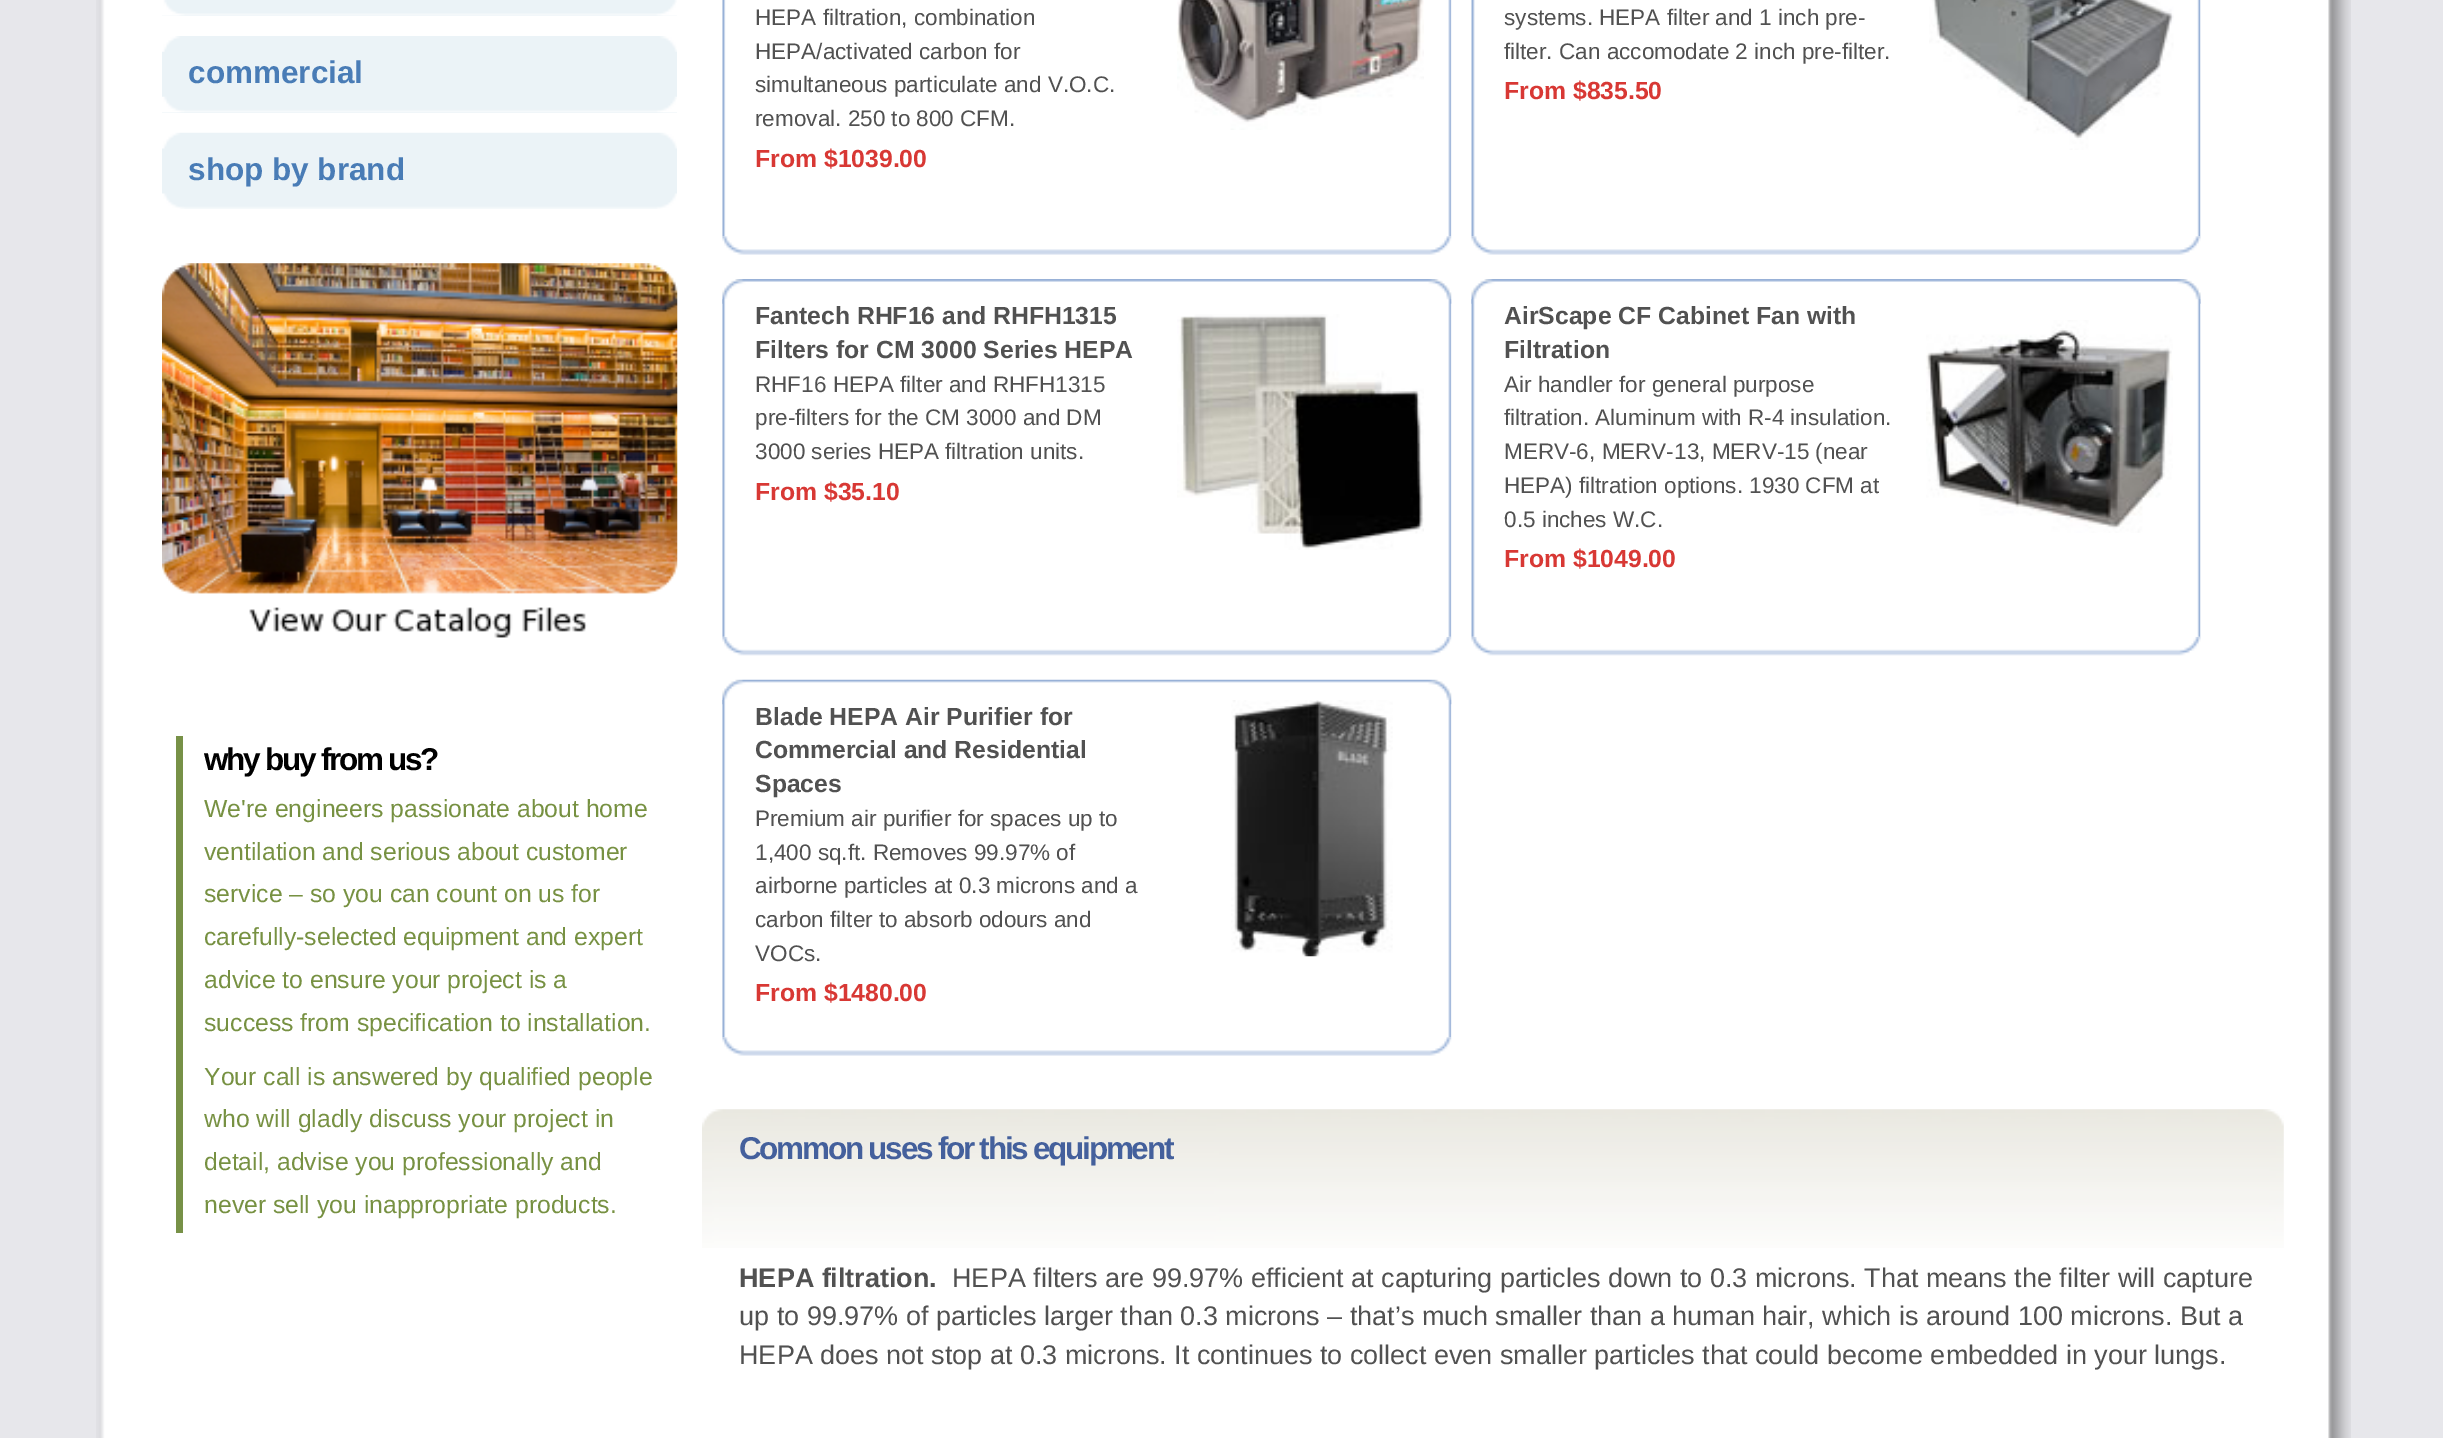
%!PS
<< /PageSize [2443 1438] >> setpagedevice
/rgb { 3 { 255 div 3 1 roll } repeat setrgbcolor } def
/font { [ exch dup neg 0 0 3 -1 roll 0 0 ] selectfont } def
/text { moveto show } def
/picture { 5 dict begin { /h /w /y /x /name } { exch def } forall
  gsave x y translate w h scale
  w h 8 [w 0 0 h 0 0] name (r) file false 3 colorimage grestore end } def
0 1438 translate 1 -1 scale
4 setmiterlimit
231 231 235 rgb
0 0 2443 1438 rectfill
(img_01.rgb) 96 0 2255 1438 picture
(img_02.rgb) 162 0 515 16 picture
235 243 247 rgb
162 51 515 62 rectfill
(img_03.rgb) 162 36 515 16 picture
(img_04.rgb) 162 96 515 17 picture
162 148 515 46 rectfill
(img_05.rgb) 162 132 515 17 picture
(img_06.rgb) 162 193 515 16 picture
(img_07.rgb) 162 263 516 375 picture
119 145 71 rgb
176 736 7 497 rectfill
(img_08.rgb) 722 236 730 19 picture
(img_09.rgb) 722 0 730 237 picture
(img_10.rgb) 1177 0 247 130 picture
(img_11.rgb) 1471 236 730 19 picture
(img_12.rgb) 1471 0 730 237 picture
(img_13.rgb) 1929 0 245 150 picture
(img_14.rgb) 722 636 730 20 picture
(img_15.rgb) 722 279 730 25 picture
(img_16.rgb) 722 299 730 338 picture
(img_17.rgb) 1177 314 247 236 picture
(img_18.rgb) 1471 636 730 20 picture
(img_19.rgb) 1471 279 730 25 picture
(img_20.rgb) 1471 299 730 338 picture
(img_21.rgb) 1926 320 247 213 picture
(img_08.rgb) 722 1037 730 19 picture
(img_22.rgb) 722 679 730 26 picture
(img_23.rgb) 722 699 730 339 picture
(img_24.rgb) 1231 700 162 257 picture
(img_25.rgb) 702 1109 1582 139 picture
/LiberationSans-Bold 31.5 font
73 124 182 rgb
(commercial) 188 83 text
(shop by brand) 188 180 text
0 0 0 rgb
204 770 moveto -2.25 0 (why buy from us?) ashow
/LiberationSans-Regular 24.75 font
119 145 66 rgb
(We're engineers passionate about home) 204 817 text
(ventilation and serious about customer) 204 860 text
(service – so you can count on us for) 204 902 text
(carefully-selected equipment and expert) 204 945 text
(advice to ensure your project is a) 204 988 text
(success from specification to installation.) 204 1031 text
(Your call is answered by qualified people) 204 1085 text
(who will gladly discuss your project in) 204 1127 text
(detail, advise you professionally and) 204 1170 text
(never sell you inappropriate products.) 204 1213 text
/LiberationSans-Regular 22.5 font
81 81 81 rgb
(HEPA filtration, combination) 755 25 text
(HEPA/activated carbon for) 755 59 text
(simultaneous particulate and V.O.C.) 755 92 text
(removal. 250 to 800 CFM.) 755 126 text
/LiberationSans-Bold 24.75 font
216 56 52 rgb
(From $1039.00) 755 167 text
/LiberationSans-Regular 22.5 font
81 81 81 rgb
(systems. HEPA filter and 1 inch pre-) 1504 25 text
(filter. Can accomodate 2 inch pre-filter.) 1504 59 text
/LiberationSans-Bold 24.75 font
216 56 52 rgb
(From $835.50) 1504 99 text
81 81 81 rgb
(Fantech RHF16 and RHFH1315) 755 324 text
(Filters for CM 3000 Series HEPA) 755 358 text
/LiberationSans-Regular 22.5 font
(RHF16 HEPA filter and RHFH1315) 755 392 text
(pre-filters for the CM 3000 and DM) 755 425 text
(3000 series HEPA filtration units.) 755 459 text
/LiberationSans-Bold 24.75 font
216 56 52 rgb
(From $35.10) 755 500 text
81 81 81 rgb
(AirScape CF Cabinet Fan with) 1504 324 text
(Filtration) 1504 358 text
/LiberationSans-Regular 22.5 font
(Air handler for general purpose) 1504 392 text
(filtration. Aluminum with R-4 insulation.) 1504 425 text
(MERV-6, MERV-13, MERV-15 \(near) 1504 459 text
(HEPA\) filtration options. 1930 CFM at) 1504 493 text
(0.5 inches W.C.) 1504 527 text
/LiberationSans-Bold 24.75 font
216 56 52 rgb
(From $1049.00) 1504 567 text
81 81 81 rgb
(Blade HEPA Air Purifier for) 755 725 text
(Commercial and Residential) 755 758 text
(Spaces) 755 792 text
/LiberationSans-Regular 22.5 font
(Premium air purifier for spaces up to) 755 826 text
(1,400 sq.ft. Removes 99.97% of) 755 860 text
(airborne particles at 0.3 microns and a) 755 893 text
(carbon filter to absorb odours and) 755 927 text
(VOCs.) 755 961 text
/LiberationSans-Bold 24.75 font
216 56 52 rgb
(From $1480.00) 755 1001 text
/LiberationSans-Bold 31.5 font
68 96 156 rgb
739 1159 moveto -2.25 0 (Common uses for this equipment) ashow
/LiberationSans-Bold 27 font
81 81 81 rgb
(HEPA filtration.) 739 1287 text
/LiberationSans-Regular 27 font
(HEPA filters are 99.97% efficient at capturing particles down to 0.3 microns. That means the filter will capture) 952 1287 text
(up to 99.97% of particles larger than 0.3 microns – that’s much smaller than a human hair, which is around 100 microns. But a) 739 1325 text
(HEPA does not stop at 0.3 microns. It continues to collect even smaller particles that could become embedded in your lungs.) 739 1364 text
showpage
